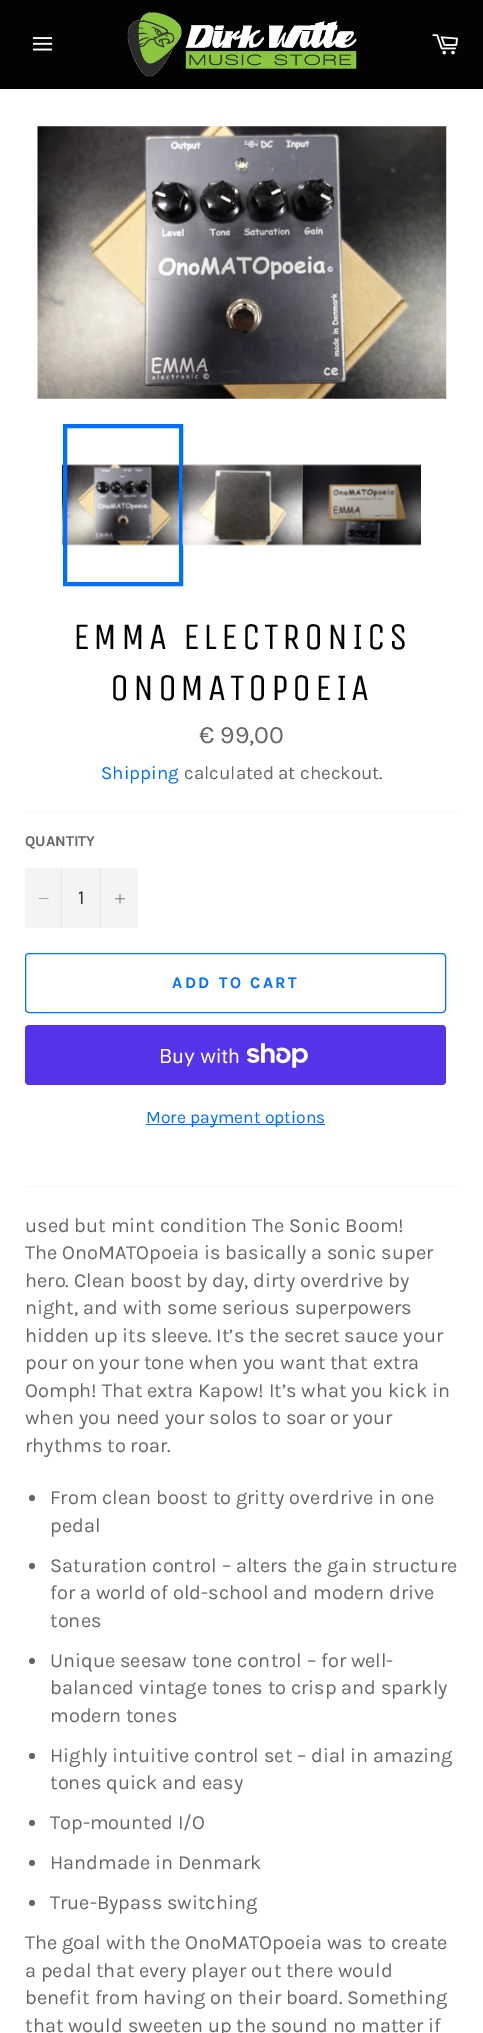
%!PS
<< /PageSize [483 2033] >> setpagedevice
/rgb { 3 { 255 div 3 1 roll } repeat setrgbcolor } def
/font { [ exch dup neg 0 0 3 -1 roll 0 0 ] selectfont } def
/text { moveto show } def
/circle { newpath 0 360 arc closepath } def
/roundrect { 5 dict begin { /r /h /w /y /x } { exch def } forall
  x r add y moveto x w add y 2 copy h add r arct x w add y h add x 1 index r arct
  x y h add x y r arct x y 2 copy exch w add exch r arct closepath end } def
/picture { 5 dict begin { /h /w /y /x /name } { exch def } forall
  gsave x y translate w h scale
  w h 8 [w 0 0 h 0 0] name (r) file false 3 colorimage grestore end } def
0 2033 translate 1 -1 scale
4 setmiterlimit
3 3 3 rgb
0 0 483 2033 rectfill
(img_01.rgb) 32 37 21 14 picture
(img_02.rgb) 127 12 230 65 picture
(img_03.rgb) 432 34 26 21 picture
255 255 255 rgb
0 89 483 1944 rectfill
(img_04.rgb) 37 126 410 273 picture
(img_05.rgb) 62 464 117 82 picture
0 110 255 rgb
4 setlinewidth
65 426 116 158 rectstroke
(img_06.rgb) 182 464 121 82 picture
(img_07.rgb) 302 464 119 82 picture
247 247 247 rgb
25 811 434 1 rectfill
244 244 244 rgb
25 868 113 60 rectfill
231 231 231 rgb
61 868 1 60 rectfill
102 102 102 rgb
48.5 898.5 moveto 0 0.5 rlineto -9.5 0 rlineto 0 -0.5 rlineto closepath eofill
231 231 231 rgb
100 868 1 60 rectfill
(img_08.rgb) 115 894 10 10 picture
0 110 255 rgb
1 setlinewidth
25.5 953.5 420 59 3.5 roundrect stroke
84 51 235 rgb
25 1025 421 60 4 roundrect fill
(img_09.rgb) 246 1043 62 25 picture
0 110 255 rgb
146 1124 179 1 rectfill
247 247 247 rgb
25 1186 434 1 rectfill
102 102 102 rgb
32 1498 3 circle fill
32 1566 3 circle fill
32 1661 3 circle fill
32 1756 3 circle fill
32 1823 3 circle fill
32 1863 3 circle fill
32 1903 3 circle fill
/UnicaOne-Regular 37.5 font
3 3 3 rgb
73 649 moveto 3.75 0 (EMMA ELECTRONICS) ashow
110 700 moveto 3.75 0 (ONOMATOPOEIA) ashow
/Karla-Regular 25 font
102 102 102 rgb
(€ 99,00) 199 743 text
/Karla-Regular 18.75 font
0 110 255 rgb
(Shipping) 101 779 text
102 102 102 rgb
(calculated at checkout.) 184 779 text
/Karla-Bold 15 font
(QUANTITY) 25 846 text
/Karla-Regular 20 font
51 51 51 rgb
(1) 78 904 text
/Karla-Bold 16.25 font
0 110 255 rgb
172 988 moveto 2.5 0 (ADD TO CART) ashow
/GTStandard-Regular 20 font
255 255 255 rgb
(Buy with) 159 1063 text
/Karla-Regular 17.5 font
0 110 255 rgb
(More payment options) 146 1123 text
/Karla-Regular 20 font
102 102 102 rgb
(used but mint condition The Sonic Boom!) 25 1232 text
(The OnoMATOpoeia is basically a sonic super) 25 1259 text
(hero. Clean boost by day, dirty overdrive by) 25 1287 text
(night, and with some serious superpowers) 25 1314 text
(hidden up its sleeve. It’s the secret sauce your) 25 1342 text
(pour on your tone when you want that extra) 25 1369 text
(Oomph! That extra Kapow! It’s what you kick in) 25 1397 text
(when you need your solos to soar or your) 25 1424 text
(rhythms to roar.) 25 1452 text
(From clean boost to gritty overdrive in one) 50 1504 text
(pedal) 50 1532 text
(Saturation control – alters the gain structure) 50 1572 text
(for a world of old-school and modern drive) 50 1599 text
(tones) 50 1627 text
(Unique seesaw tone control – for well-) 50 1667 text
(balanced vintage tones to crisp and sparkly) 50 1694 text
(modern tones) 50 1722 text
(Highly intuitive control set – dial in amazing) 50 1762 text
(tones quick and easy) 50 1789 text
(Top-mounted I/O) 50 1829 text
(Handmade in Denmark) 50 1869 text
(True-Bypass switching) 50 1909 text
(The goal with the OnoMATOpoeia was to create) 25 1949 text
(a pedal that every player out there would) 25 1977 text
(benefit from having on their board. Something) 25 2004 text
(that would sweeten up the sound no matter if) 25 2032 text
showpage
